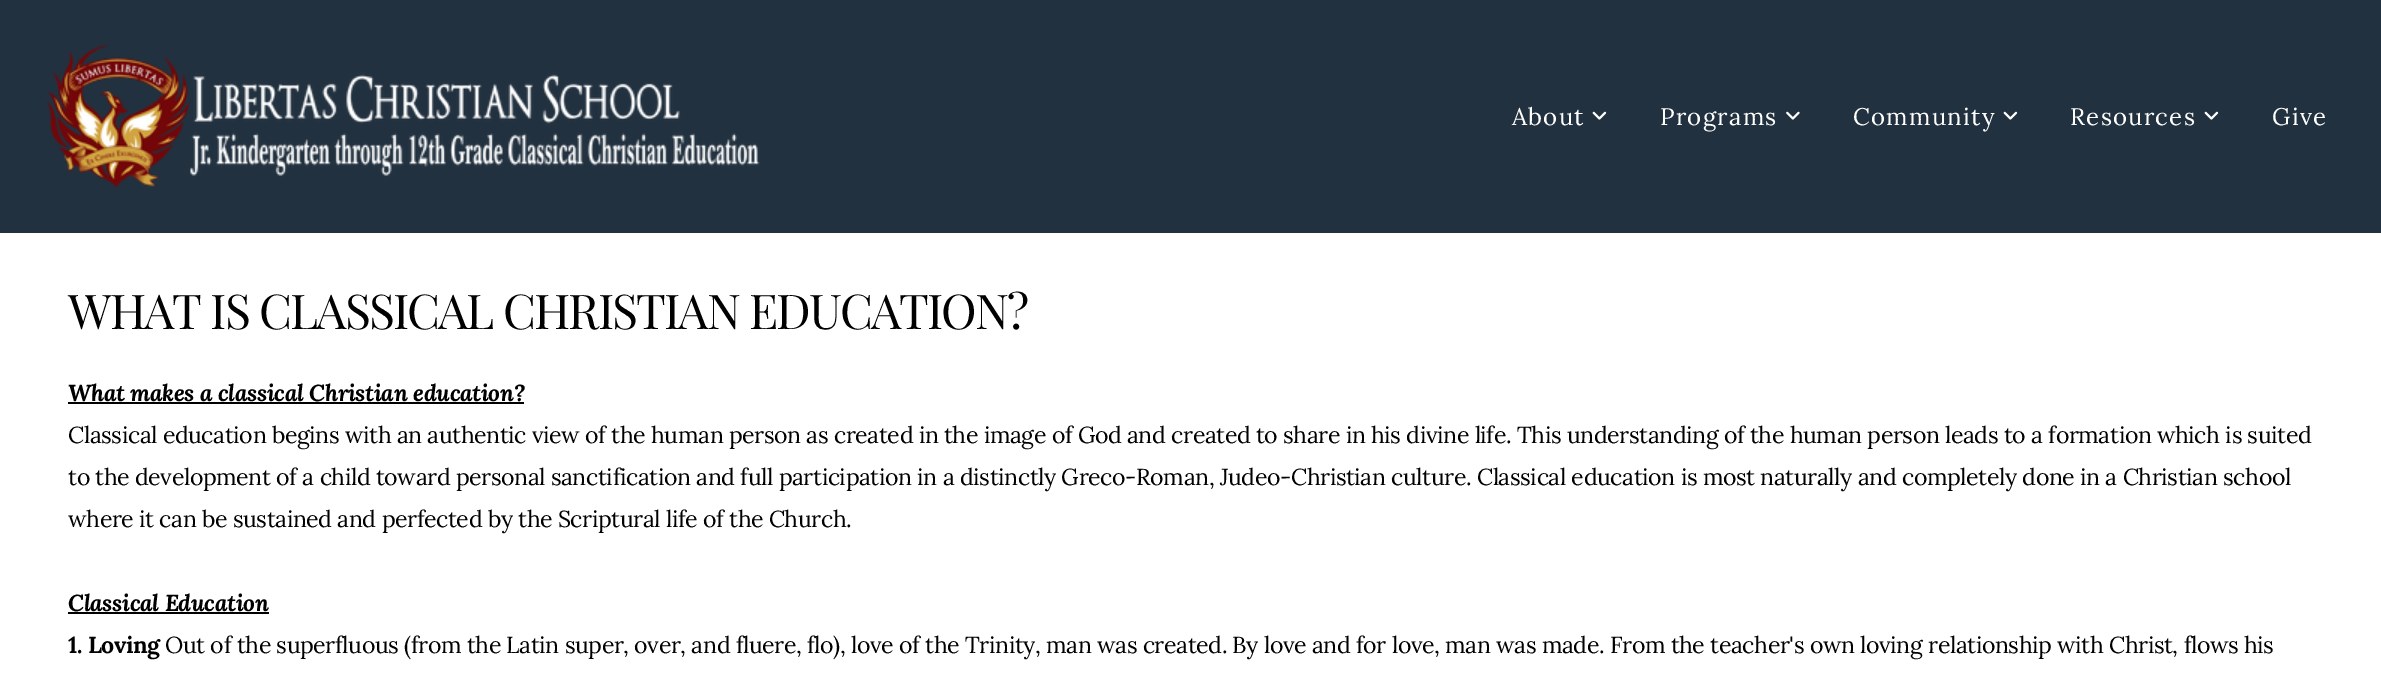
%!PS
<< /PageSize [2381 678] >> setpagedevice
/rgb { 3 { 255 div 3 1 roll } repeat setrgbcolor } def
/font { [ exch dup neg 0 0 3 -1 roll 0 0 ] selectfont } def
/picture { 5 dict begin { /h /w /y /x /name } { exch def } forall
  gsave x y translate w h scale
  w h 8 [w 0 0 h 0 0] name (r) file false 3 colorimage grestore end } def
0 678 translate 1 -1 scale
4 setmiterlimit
255 255 255 rgb
0 0 2381 678 rectfill
34 49 63 rgb
0 0 2381 233 rectfill
(img_01.rgb) 46 44 714 144 picture
(img_02.rgb) 1592 111 15 9 picture
(img_03.rgb) 1786 111 14 9 picture
(img_02.rgb) 2003 111 15 9 picture
(img_02.rgb) 2204 111 15 9 picture
0 0 0 rgb
68 402 456 2 rectfill
68 612 201 2 rectfill
/Lora-Regular 24 font
255 255 255 rgb
1512 125 moveto 1.25 0 (About) ashow
1660 125 moveto 1.25 0 (Programs) ashow
1853 125 moveto 1.25 0 (Community) ashow
2070 125 moveto 1.25 0 (Resources) ashow
2272 125 moveto 1.25 0 (Give) ashow
/PlayfairDisplay-Regular 48 font
0 0 0 rgb
68 329 moveto -1.9 0 (WHAT IS CLASSICAL CHRISTIAN EDUCATION?) ashow
/Lora-BoldItalic 23.1 font
68 401 moveto -0.42 0 (What makes a classical Christian education?) ashow
/Lora-Regular 23.1 font
68 443 moveto -0.42 0 (Classical education begins with an authentic view of the human person as created in the image of God and created to share in his divine life. This understanding of the human person leads to a formation which is suited) ashow
68 485 moveto -0.42 0 (to the development of a child toward personal sanctification and full participation in a distinctly Greco-Roman, Judeo-Christian culture. Classical education is most naturally and completely done in a Christian school) ashow
68 527 moveto -0.42 0 (where it can be sustained and perfected by the Scriptural life of the Church.) ashow
/Lora-BoldItalic 23.1 font
68 611 moveto -0.42 0 (Classical Education) ashow
/Lora-Bold 23.1 font
68 653 moveto -0.42 0 (1. Loving) ashow
/Lora-Regular 23.1 font
165 653 moveto -0.42 0 (Out of the superfluous \(from the Latin super, over, and fluere, flo\), love of the Trinity, man was created. By love and for love, man was made. From the teacher's own loving relationship with Christ, flows his) ashow
showpage
